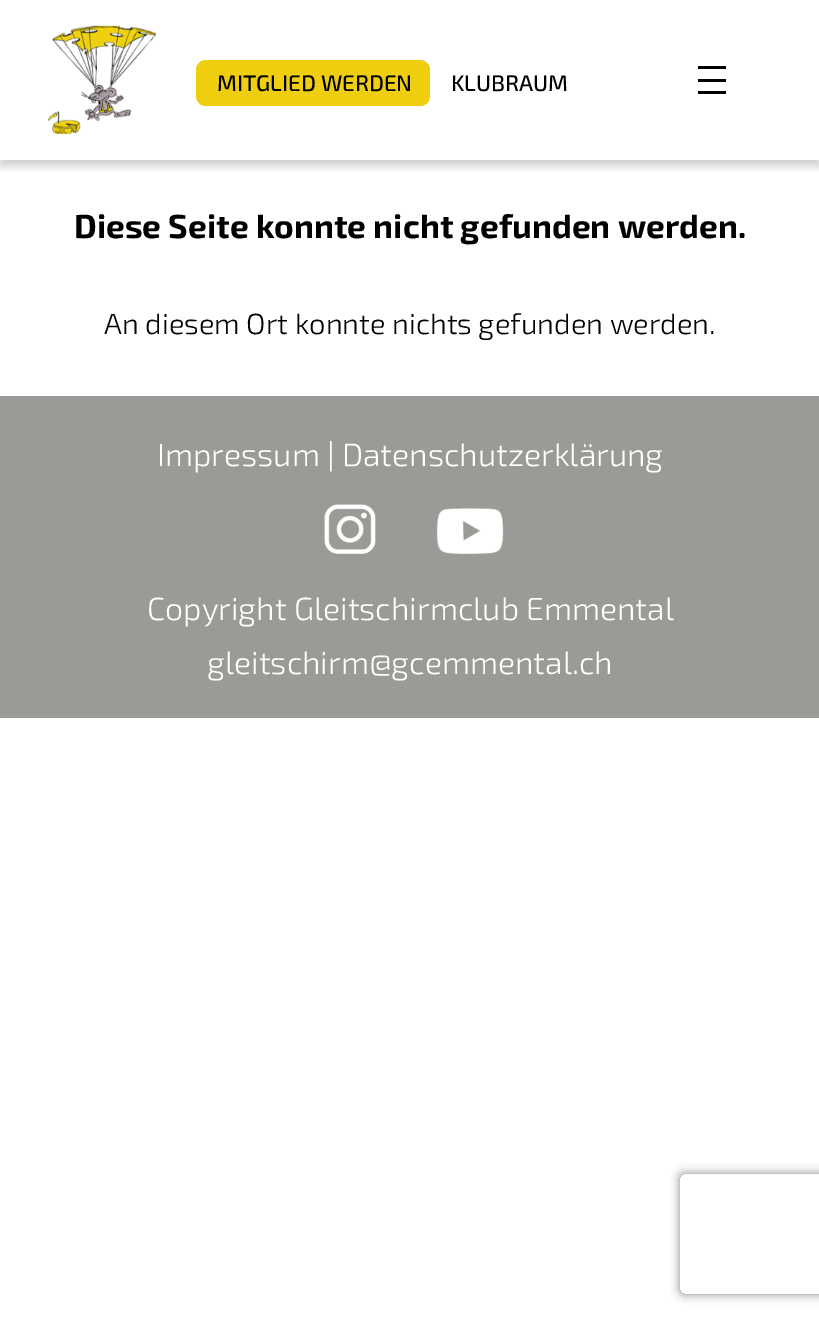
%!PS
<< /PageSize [819 1322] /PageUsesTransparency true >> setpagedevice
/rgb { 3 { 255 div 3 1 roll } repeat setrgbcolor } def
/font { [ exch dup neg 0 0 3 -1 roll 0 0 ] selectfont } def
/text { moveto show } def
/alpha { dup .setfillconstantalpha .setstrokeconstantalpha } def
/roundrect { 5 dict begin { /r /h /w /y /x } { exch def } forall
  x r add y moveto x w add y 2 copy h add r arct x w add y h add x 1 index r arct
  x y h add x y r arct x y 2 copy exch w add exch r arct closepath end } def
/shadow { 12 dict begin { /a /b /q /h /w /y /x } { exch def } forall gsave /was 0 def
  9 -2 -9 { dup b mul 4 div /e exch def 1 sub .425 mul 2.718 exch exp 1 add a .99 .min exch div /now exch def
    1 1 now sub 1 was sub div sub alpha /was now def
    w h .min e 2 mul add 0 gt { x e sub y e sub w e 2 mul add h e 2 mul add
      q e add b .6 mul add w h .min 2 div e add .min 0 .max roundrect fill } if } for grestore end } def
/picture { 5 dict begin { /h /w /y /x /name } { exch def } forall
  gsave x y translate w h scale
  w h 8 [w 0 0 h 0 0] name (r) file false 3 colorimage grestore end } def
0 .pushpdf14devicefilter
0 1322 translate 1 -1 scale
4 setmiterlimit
255 255 255 rgb
0 0 819 1322 rectfill
gsave
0 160 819 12 rectclip
0 0 0 rgb
0 6 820 160 0 5 0.2 shadow
grestore
(img_01.rgb) 48 25 108 110 picture
238 206 14 rgb
196 60 234 46 10 roundrect fill
0 0 0 rgb
698 66 28 3 rectfill
698 79 28 3 rectfill
698 91 28 3 rectfill
156 154 151 rgb
0 396 819 322 rectfill
(img_02.rgb) 324 504 52 50 picture
(img_03.rgb) 436 508 68 46 picture
gsave
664 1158 moveto 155 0 rlineto 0 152 rlineto -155 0 rlineto closepath 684 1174 moveto 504 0 rlineto 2 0 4 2 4 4 rcurveto 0 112 rlineto 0 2 -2 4 -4 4 rcurveto -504 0 rlineto -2 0 -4 -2 -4 -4 rcurveto 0 -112 rlineto 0 -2 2 -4 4 -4 rcurveto closepath eoclip newpath
128 128 128 rgb
680 1174 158 120 4 5 1 shadow
grestore
/Exo2-Medium 22.5 font
0 0 0 rgb
(MITGLIED WERDEN) 217 91 text
(KLUBRAUM) 451 91 text
/Exo2-Bold 33.3 font
(Diese Seite konnte nicht gefunden werden.) 74 238 text
/Exo2-Light 29.1 font
(An diesem Ort konnte nichts gefunden werden.) 104 334 text
/Exo2-Light 32 font
255 255 255 rgb
(Impressum | Datenschutzerklärung) 157 466 text
(Copyright Gleitschirmclub Emmental) 147 620 text
(gleitschirm@gcemmental.ch) 207 674 text
.poppdf14devicefilter showpage
